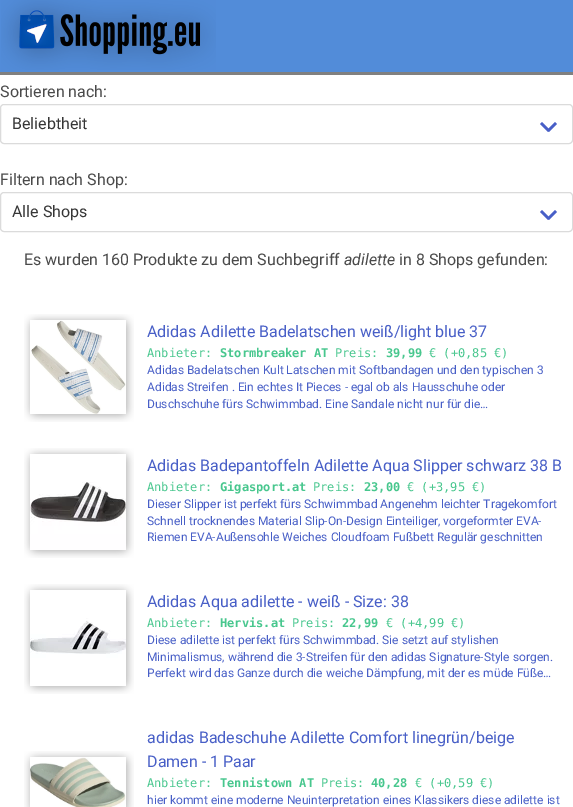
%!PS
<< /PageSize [573 807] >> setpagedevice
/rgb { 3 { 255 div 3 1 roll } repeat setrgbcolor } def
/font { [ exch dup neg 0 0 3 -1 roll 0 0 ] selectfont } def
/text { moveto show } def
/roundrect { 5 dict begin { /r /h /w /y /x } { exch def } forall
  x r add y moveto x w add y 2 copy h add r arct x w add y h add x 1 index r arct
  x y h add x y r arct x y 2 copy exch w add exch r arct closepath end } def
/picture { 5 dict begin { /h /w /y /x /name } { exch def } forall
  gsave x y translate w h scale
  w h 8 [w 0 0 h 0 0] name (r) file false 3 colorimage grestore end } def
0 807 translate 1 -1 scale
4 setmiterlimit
255 255 255 rgb
0 0 573 807 rectfill
82 140 217 rgb
0 0 573 72 rectfill
128 128 128 rgb
0 72 573 3 rectfill
(img_01.rgb) 1 0 215 70 picture
219 219 219 rgb
0.5 104.5 572 39 3.5 roundrect stroke
72 95 199 rgb
547 130 moveto 8 -8 rlineto 2 2 rlineto -8 8 rlineto closepath fill
540 124 moveto 2 -2 rlineto 8 8 rlineto -2 2 rlineto closepath fill
219 219 219 rgb
0.5 192.5 572 39 3.5 roundrect stroke
72 95 199 rgb
547 218 moveto 8 -8 rlineto 2 2 rlineto -8 8 rlineto closepath fill
540 212 moveto 2 -2 rlineto 8 8 rlineto -2 2 rlineto closepath fill
(img_02.rgb) 24 314 110 108 picture
(img_03.rgb) 24 448 110 110 picture
(img_04.rgb) 24 584 110 110 picture
(img_05.rgb) 24 751 110 56 picture
/Roboto-Regular 16 font
74 74 74 rgb
(Sortieren nach:) 0 97 text
54 54 54 rgb
(Beliebtheit) 12 129 text
74 74 74 rgb
(Filtern nach Shop:) 0 185 text
54 54 54 rgb
(Alle Shops) 12 217 text
74 74 74 rgb
(Es wurden 160 Produkte zu dem Suchbegriff) 24 265 text
/Roboto-Italic 16 font
(adilette) 344 265 text
/Roboto-Regular 16 font
(in 8 Shops gefunden:) 399 265 text
72 95 199 rgb
(Adidas Adilette Badelatschen weiß/light blue 37) 147 337 text
/DejaVuSansMono-Regular 12 font
72 199 142 rgb
(Anbieter:) 147 357 text
/DejaVuSansMono-Bold 12 font
(Stormbreaker AT) 220 357 text
/DejaVuSansMono-Regular 12 font
(Preis:) 335 357 text
/DejaVuSansMono-Bold 12 font
(39,99) 386 357 text
/DejaVuSansMono-Regular 12 font
(€ \(+0,85 €\)) 429 357 text
/Roboto-Regular 12 font
72 95 199 rgb
(Adidas Badelatschen Kult Latschen mit Softbandagen und den typischen 3) 147 374 text
(Adidas Streifen . Ein echtes It Pieces - egal ob als Hausschuhe oder) 147 391 text
(Duschschuhe fürs Schwimmbad. Eine Sandale nicht nur für die…) 147 408 text
/Roboto-Regular 16 font
(Adidas Badepantoffeln Adilette Aqua Slipper schwarz 38 B) 147 471 text
/DejaVuSansMono-Regular 12 font
72 199 142 rgb
(Anbieter:) 147 491 text
/DejaVuSansMono-Bold 12 font
(Gigasport.at) 220 491 text
/DejaVuSansMono-Regular 12 font
(Preis:) 313 491 text
/DejaVuSansMono-Bold 12 font
(23,00) 364 491 text
/DejaVuSansMono-Regular 12 font
(€ \(+3,95 €\)) 407 491 text
/Roboto-Regular 12 font
72 95 199 rgb
(Dieser Slipper ist perfekt fürs Schwimmbad Angenehm leichter Tragekomfort) 147 508 text
(Schnell trocknendes Material Slip-On-Design Einteiliger, vorgeformter EVA-) 147 525 text
(Riemen EVA-Außensohle Weiches Cloudfoam Fußbett Regulär geschnitten) 147 541 text
/Roboto-Regular 16 font
(Adidas Aqua adilette - weiß - Size: 38) 147 607 text
/DejaVuSansMono-Regular 12 font
72 199 142 rgb
(Anbieter:) 147 627 text
/DejaVuSansMono-Bold 12 font
(Hervis.at) 220 627 text
/DejaVuSansMono-Regular 12 font
(Preis:) 292 627 text
/DejaVuSansMono-Bold 12 font
(22,99) 342 627 text
/DejaVuSansMono-Regular 12 font
(€ \(+4,99 €\)) 386 627 text
/Roboto-Regular 12 font
72 95 199 rgb
(Diese adilette ist perfekt fürs Schwimmbad. Sie setzt auf stylishen) 147 644 text
(Minimalismus, während die 3-Streifen für den adidas Signature-Style sorgen.) 147 661 text
(Perfekt wird das Ganze durch die weiche Dämpfung, mit der es müde Füße…) 147 677 text
/Roboto-Regular 16 font
(adidas Badeschuhe Adilette Comfort linegrün/beige) 147 743 text
(Damen - 1 Paar) 147 767 text
/DejaVuSansMono-Regular 12 font
72 199 142 rgb
(Anbieter:) 147 787 text
/DejaVuSansMono-Bold 12 font
(Tennistown AT) 220 787 text
/DejaVuSansMono-Regular 12 font
(Preis:) 321 787 text
/DejaVuSansMono-Bold 12 font
(40,28) 371 787 text
/DejaVuSansMono-Regular 12 font
(€ \(+0,59 €\)) 415 787 text
/Roboto-Regular 12 font
72 95 199 rgb
(hier kommt eine moderne Neuinterpretation eines Klassikers diese adilette ist) 147 804 text
showpage
